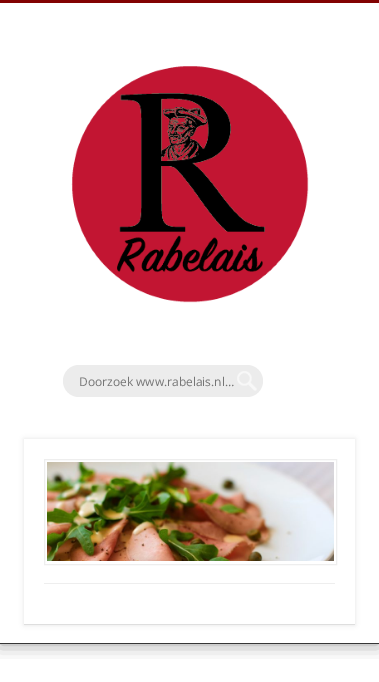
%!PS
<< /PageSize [379 682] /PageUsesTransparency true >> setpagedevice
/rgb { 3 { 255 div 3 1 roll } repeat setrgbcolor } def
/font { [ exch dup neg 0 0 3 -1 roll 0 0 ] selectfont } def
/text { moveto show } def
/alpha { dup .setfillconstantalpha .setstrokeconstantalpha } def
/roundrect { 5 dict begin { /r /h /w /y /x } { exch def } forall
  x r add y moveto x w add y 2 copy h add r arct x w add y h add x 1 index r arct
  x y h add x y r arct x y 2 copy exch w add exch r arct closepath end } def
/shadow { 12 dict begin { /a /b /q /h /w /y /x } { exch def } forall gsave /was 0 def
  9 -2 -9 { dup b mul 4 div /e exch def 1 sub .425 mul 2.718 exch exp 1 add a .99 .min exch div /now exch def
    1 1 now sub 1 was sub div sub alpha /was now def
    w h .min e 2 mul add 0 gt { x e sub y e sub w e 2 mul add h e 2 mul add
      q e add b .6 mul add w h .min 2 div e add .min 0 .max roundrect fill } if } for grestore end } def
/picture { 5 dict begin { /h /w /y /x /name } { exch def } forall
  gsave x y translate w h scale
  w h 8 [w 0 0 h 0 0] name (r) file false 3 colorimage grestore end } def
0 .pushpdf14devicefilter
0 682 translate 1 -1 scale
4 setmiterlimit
255 255 255 rgb
0 0 379 682 rectfill
gsave
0 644 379 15 rectclip
0 0 0 rgb
0 0 379 644 0 9 0.4 shadow
grestore
130 2 2 rgb
0 0 379 3 rectfill
(img_01.rgb) 71 66 238 237 picture
236 236 236 rgb
63 365 200 32 16 roundrect fill
(img_02.rgb) 237 371 20 20 picture
gsave
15 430 moveto 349 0 rlineto 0 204 rlineto -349 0 rlineto closepath 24 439 moveto 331 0 rlineto 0 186 rlineto -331 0 rlineto closepath eoclip newpath
0 0 0 rgb
24 439 331 186 0 2.5 0.1 shadow
grestore
222 222 222 rgb
24 624 331 1 rectfill
238 238 238 rgb
44.5 459.5 292 105 rectstroke
(img_03.rgb) 47 462 287 99 picture
44 583 291 1 rectfill
54 54 54 rgb
0 643 379 1 rectfill
/OpenSans-Regular 12 font
117 117 117 rgb
(Doorzoek www.rabelais.nl…) 79 386 text
.poppdf14devicefilter showpage
